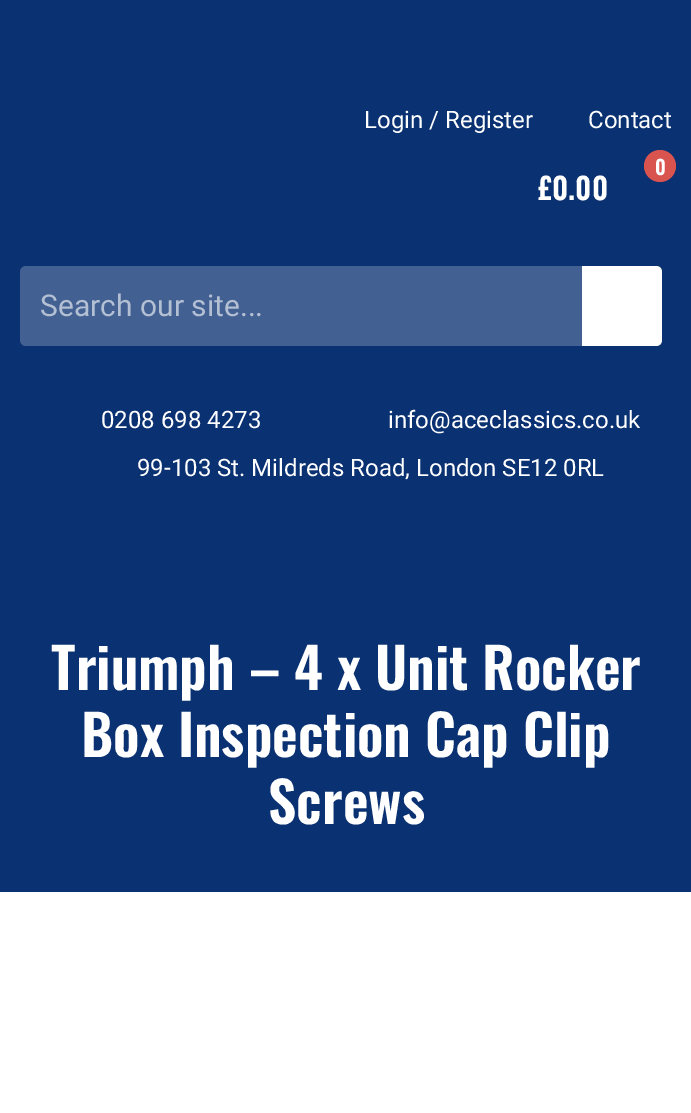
%!PS
<< /PageSize [691 1113] >> setpagedevice
/rgb { 3 { 255 div 3 1 roll } repeat setrgbcolor } def
/font { [ exch dup neg 0 0 3 -1 roll 0 0 ] selectfont } def
/text { moveto show } def
/circle { newpath 0 360 arc closepath } def
/roundrect { 5 dict begin { /r /h /w /y /x } { exch def } forall
  x r add y moveto x w add y 2 copy h add r arct x w add y h add x 1 index r arct
  x y h add x y r arct x y 2 copy exch w add exch r arct closepath end } def
0 1113 translate 1 -1 scale
4 setmiterlimit
255 255 255 rgb
0 0 691 1113 rectfill
10 49 113 rgb
0 0 691 892 rectfill
217 83 79 rgb
660 166 16 circle fill
66 96 146 rgb
20 266 642 80 6 roundrect fill
255 255 255 rgb
582 266 moveto 74 0 rlineto 3.5 0 6 2.5 6 6 rcurveto 0 68 rlineto 0 3.5 -2.5 6 -6 6 rcurveto -74 0 rlineto closepath fill
/Roboto-Regular 24 font
(Login / Register) 364 128 text
(Contact) 588 128 text
/Oswald-SemiBold 20 font
(0) 655 175 text
/Oswald-SemiBold 30 font
(£0.00) 538 200 text
/Roboto-Regular 30 font
179 191 211 rgb
(Search our site...) 40 316 text
/Roboto-Regular 24 font
255 255 255 rgb
(0208 698 4273) 101 428 text
(info@aceclassics.co.uk) 388 428 text
(99-103 St. Mildreds Road, London SE12 0RL) 137 476 text
/Oswald-SemiBold 56 font
(Triumph – 4 x Unit Rocker) 51 690 text
(Box Inspection Cap Clip) 81 757 text
(Screws) 268 824 text
showpage
